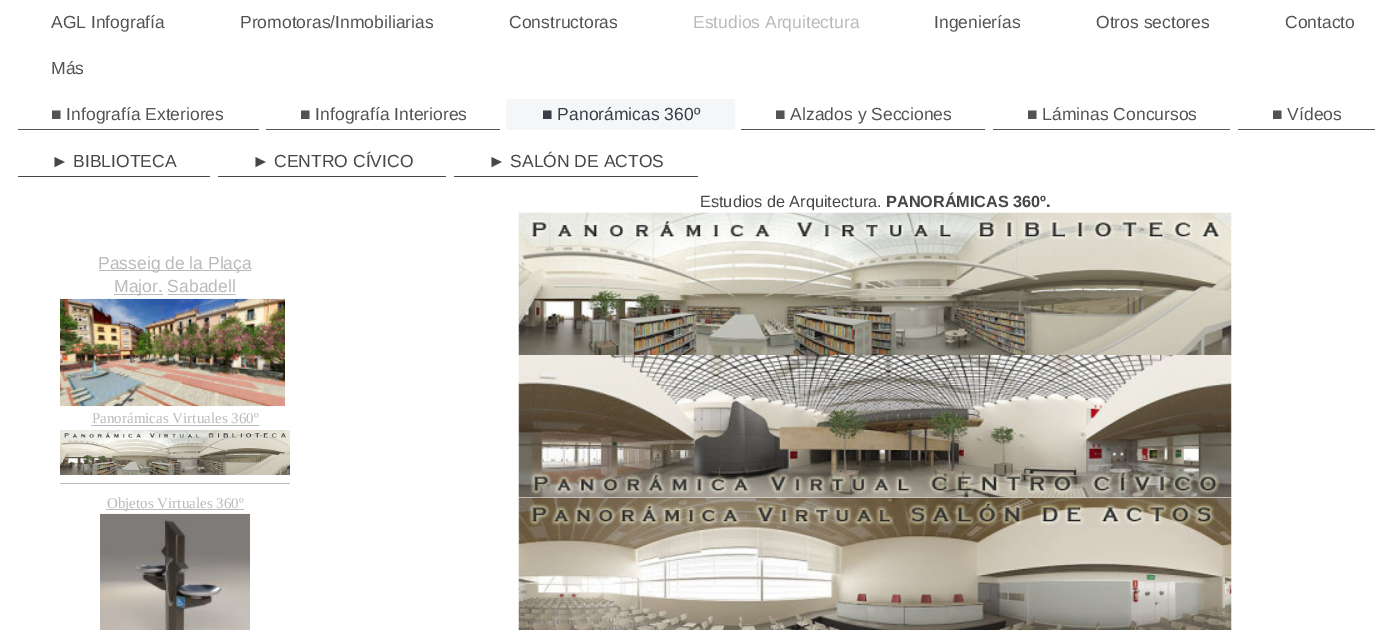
%!PS
<< /PageSize [1399 630] >> setpagedevice
/rgb { 3 { 255 div 3 1 roll } repeat setrgbcolor } def
/font { [ exch dup neg 0 0 3 -1 roll 0 0 ] selectfont } def
/text { moveto show } def
/roundrect { 5 dict begin { /r /h /w /y /x } { exch def } forall
  x r add y moveto x w add y 2 copy h add r arct x w add y h add x 1 index r arct
  x y h add x y r arct x y 2 copy exch w add exch r arct closepath end } def
/picture { 5 dict begin { /h /w /y /x /name } { exch def } forall
  gsave x y translate w h scale
  w h 8 [w 0 0 h 0 0] name (r) file false 3 colorimage grestore end } def
0 630 translate 1 -1 scale
4 setmiterlimit
255 255 255 rgb
0 0 1399 630 rectfill
83 83 83 rgb
18 129 241 1 rectfill
266 129 234 1 rectfill
245 246 248 rgb
506 99 229 31 2.5 roundrect fill
733 129 1 1 rectfill
83 83 83 rgb
741 129 244 1 rectfill
993 129 237 1 rectfill
1238 129 137 1 rectfill
71 71 71 rgb
18 176 192 1 rectfill
218 176 228 1 rectfill
454 176 244 1 rectfill
(img_01.rgb) 518 212 714 143 picture
(img_02.rgb) 518 355 714 143 picture
(img_03.rgb) 518 497 714 133 picture
186 186 186 rgb
99 270 152 1 rectfill
114 294 49 1 rectfill
168 294 68 1 rectfill
(img_04.rgb) 60 298 225 109 picture
91 425 168 1 rectfill
(img_05.rgb) 60 430 230 45 picture
60 483 230 1 rectfill
106 509 138 1 rectfill
(img_06.rgb) 100 513 150 117 picture
/LiberationSans-Regular 17.5 font
83 83 83 rgb
(AGL Infografía) 51 28 text
(Promotoras/Inmobiliarias) 240 28 text
(Constructoras) 509 28 text
186 186 186 rgb
(Estudios Arquitectura) 693 28 text
83 83 83 rgb
(Ingenierías) 934 28 text
(Otros sectores) 1096 28 text
(Contacto) 1285 28 text
(Más) 51 74 text
(■ Infografía Exteriores) 51 120 text
(■ Infografía Interiores) 300 120 text
56 61 70 rgb
(■ Panorámicas 360º) 542 120 text
83 83 83 rgb
(■ Alzados y Secciones) 775 120 text
(■ Láminas Concursos) 1027 120 text
(■ Vídeos) 1272 120 text
71 71 71 rgb
(► BIBLIOTECA) 51 167 text
(► CENTRO CÍVICO) 252 167 text
(► SALÓN DE ACTOS) 488 167 text
/LiberationSans-Regular 16.25 font
(Estudios de Arquitectura.) 700 207 text
/LiberationSans-Bold 16.25 font
(PANORÁMICAS 360º.) 886 207 text
/LiberationSans-Regular 17.5 font
186 186 186 rgb
(Passeig de la Plaça) 98 269 text
(Major. Sabadell) 114 292 text
/LiberationSerif-Regular 15 font
(Panorámicas Virtuales 360º) 92 423 text
(Objetos Virtuales 360º) 107 508 text
showpage
